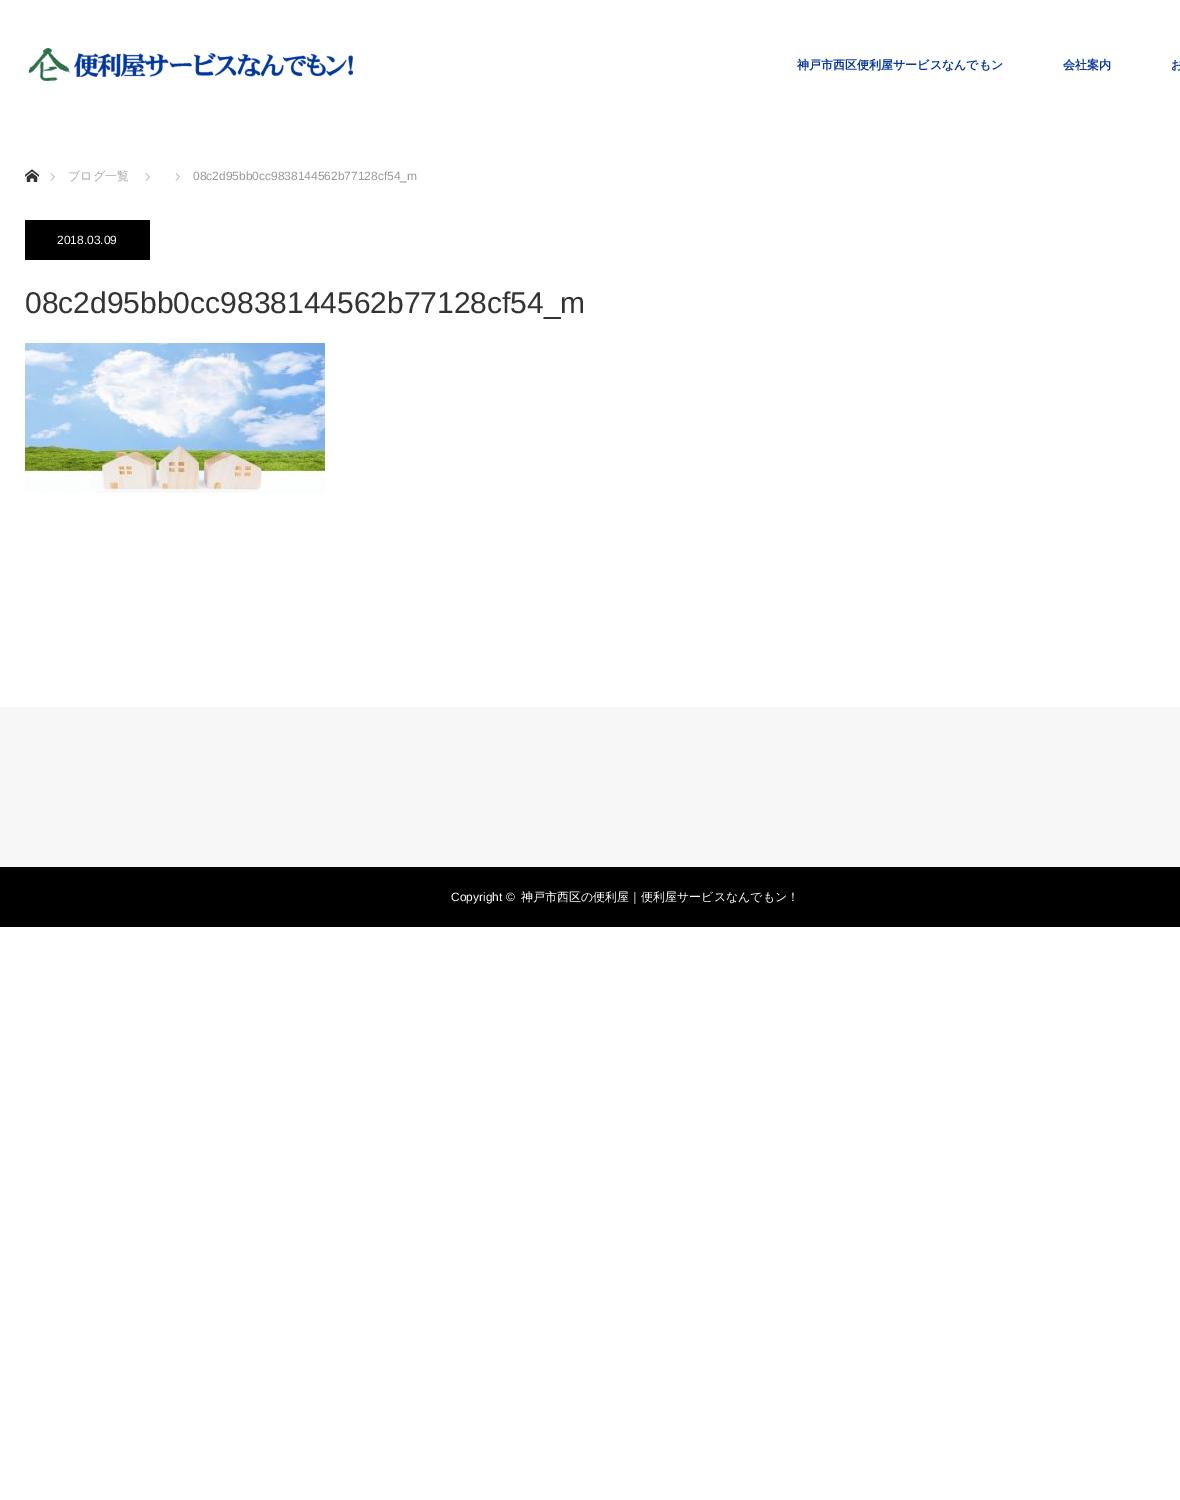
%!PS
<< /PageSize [1180 1500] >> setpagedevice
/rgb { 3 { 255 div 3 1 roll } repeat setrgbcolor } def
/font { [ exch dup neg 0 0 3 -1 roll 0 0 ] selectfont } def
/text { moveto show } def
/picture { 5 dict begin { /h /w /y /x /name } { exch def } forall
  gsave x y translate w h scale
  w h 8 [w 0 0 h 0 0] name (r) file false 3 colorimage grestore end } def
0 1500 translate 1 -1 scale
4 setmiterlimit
255 255 255 rgb
0 0 1180 1500 rectfill
(img_01.rgb) 28 47 325 34 picture
(img_02.rgb) 25 169 14 13 picture
(img_03.rgb) 50 173 5 8 picture
(img_03.rgb) 145 173 5 8 picture
(img_03.rgb) 175 173 5 8 picture
0 0 0 rgb
25 220 125 40 rectfill
(img_04.rgb) 25 343 300 150 picture
247 247 247 rgb
0 707 1180 160 rectfill
0 0 0 rgb
0 867 1180 60 rectfill
/WenQuanYiZenHei-Bold 12 font
6 55 156 rgb
(神戸市西区便利屋サービスなんでもン) 797 69 text
(会社案内) 1063 69 text
(お) 1171 69 text
/WenQuanYiZenHei-Medium 12 font
170 170 170 rgb
(ブログ一覧) 68 180 text
/LiberationSans-Regular 12 font
153 153 153 rgb
(08c2d95bb0cc9838144562b77128cf54_m) 193 180 text
255 255 255 rgb
(2018.03.09) 57 244 text
/LiberationSans-Regular 30 font
51 51 51 rgb
(08c2d95bb0cc9838144562b77128cf54_m) 25 313 text
/LiberationSans-Regular 12 font
255 255 255 rgb
(Copyright ©) 451 901 text
/WenQuanYiZenHei-Medium 12 font
(神戸市西区の便利屋｜便利屋サービスなんでもン！) 521 901 text
showpage
